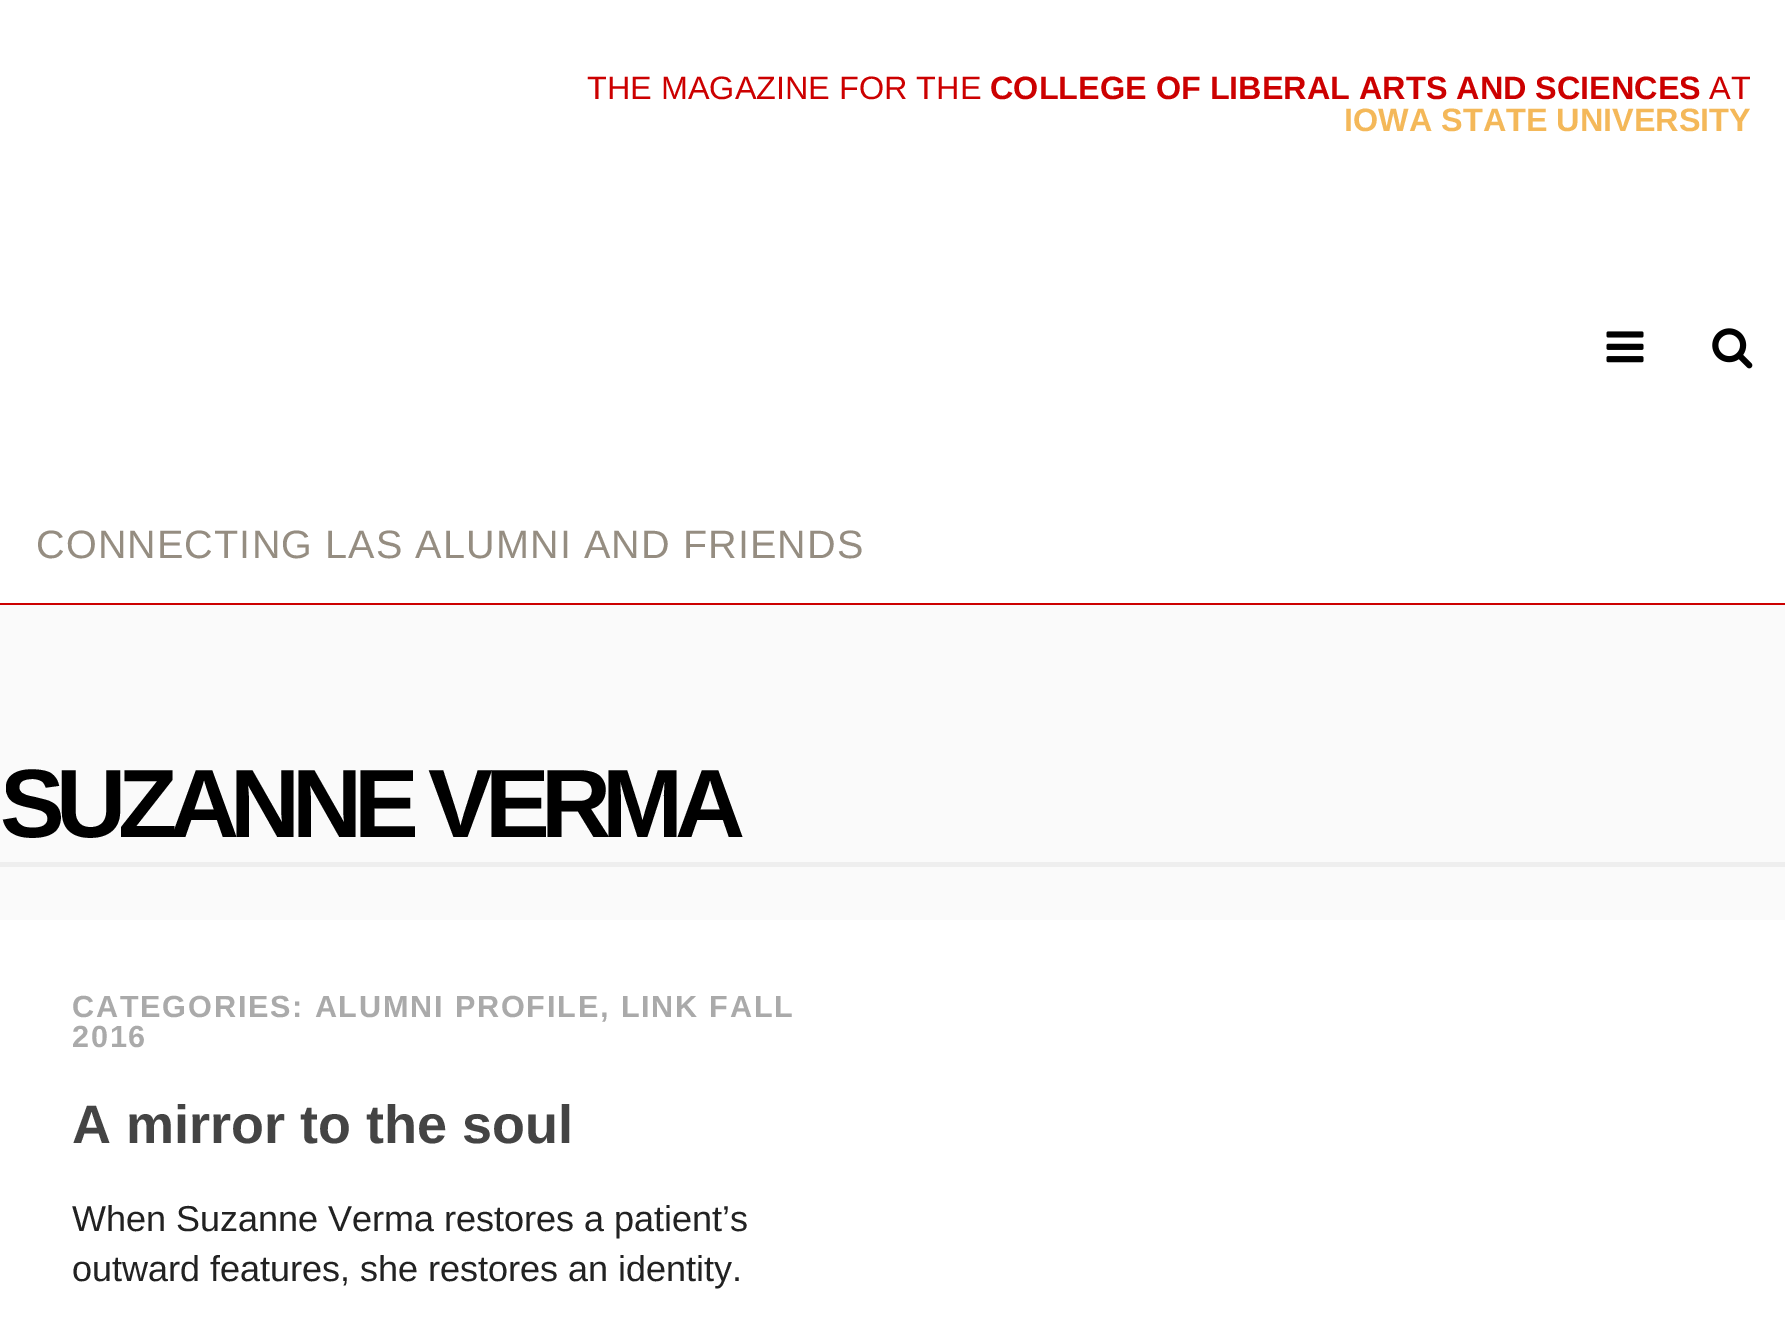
%!PS
<< /PageSize [1785 1340] >> setpagedevice
/rgb { 3 { 255 div 3 1 roll } repeat setrgbcolor } def
/font { [ exch dup neg 0 0 3 -1 roll 0 0 ] selectfont } def
/text { moveto show } def
/picture { 5 dict begin { /h /w /y /x /name } { exch def } forall
  gsave x y translate w h scale
  w h 8 [w 0 0 h 0 0] name (r) file false 3 colorimage grestore end } def
0 1340 translate 1 -1 scale
4 setmiterlimit
250 250 250 rgb
0 0 1785 1340 rectfill
255 255 255 rgb
0 0 1785 603 rectfill
204 0 0 rgb
0 603 1785 2 rectfill
(img_01.rgb) 1606 331 38 32 picture
(img_02.rgb) 1712 328 41 41 picture
238 238 238 rgb
0 862 1785 5 rectfill
255 255 255 rgb
0 920 1785 420 rectfill
/LiberationSans-Regular 32.4 font
204 0 0 rgb
(THE MAGAZINE FOR THE) 587 99 text
/LiberationSans-Bold 32.4 font
(COLLEGE OF LIBERAL ARTS AND SCIENCES) 990 99 text
/LiberationSans-Regular 32.4 font
(AT) 1709 99 text
/LiberationSans-Bold 32.4 font
244 184 89 rgb
(IOWA STATE UNIVERSITY) 1344 131 text
/LiberationSans-Regular 39.6 font
149 141 129 rgb
36 558 moveto 1.1 0 (CONNECTING LAS ALUMNI AND FRIENDS) ashow
/LiberationSans-Bold 97.25 font
0 0 0 rgb
0 837 moveto -8.6 0 (SUZANNE VERMA) ashow
/LiberationSans-Bold 30.6 font
170 170 170 rgb
72 1017 moveto 1.8 0 (CATEGORIES: ALUMNI PROFILE) ashow
600 1017 moveto 1.8 0 (, LINK FALL) ashow
72 1047 moveto 1.8 0 (2016) ashow
/LiberationSans-Bold 54 font
68 68 68 rgb
(A mirror to the soul) 72 1143 text
/LiberationSans-Regular 36 font
34 34 34 rgb
(When Suzanne Verma restores a patient’s) 72 1231 text
(outward features, she restores an identity.) 72 1281 text
showpage
